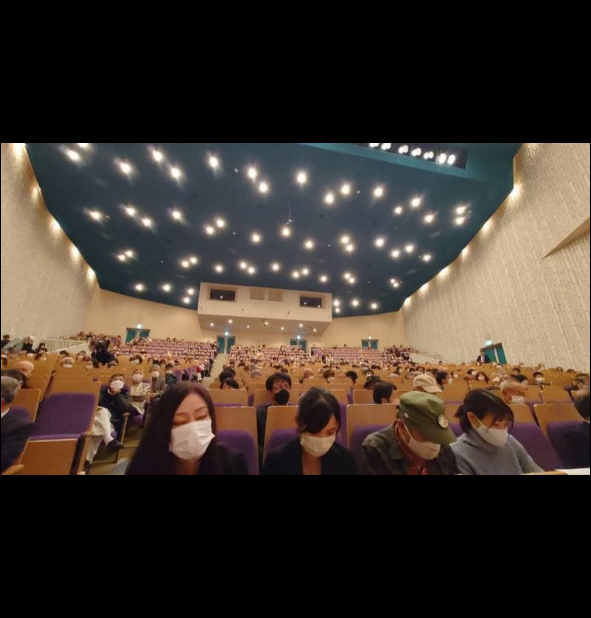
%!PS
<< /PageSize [591 618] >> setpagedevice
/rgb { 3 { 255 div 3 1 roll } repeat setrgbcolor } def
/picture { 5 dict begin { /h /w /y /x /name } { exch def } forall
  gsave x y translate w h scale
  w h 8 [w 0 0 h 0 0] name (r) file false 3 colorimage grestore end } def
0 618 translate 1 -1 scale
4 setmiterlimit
0 0 0 rgb
0 0 591 618 rectfill
(img_01.rgb) 1 143 589 332 picture
showpage
